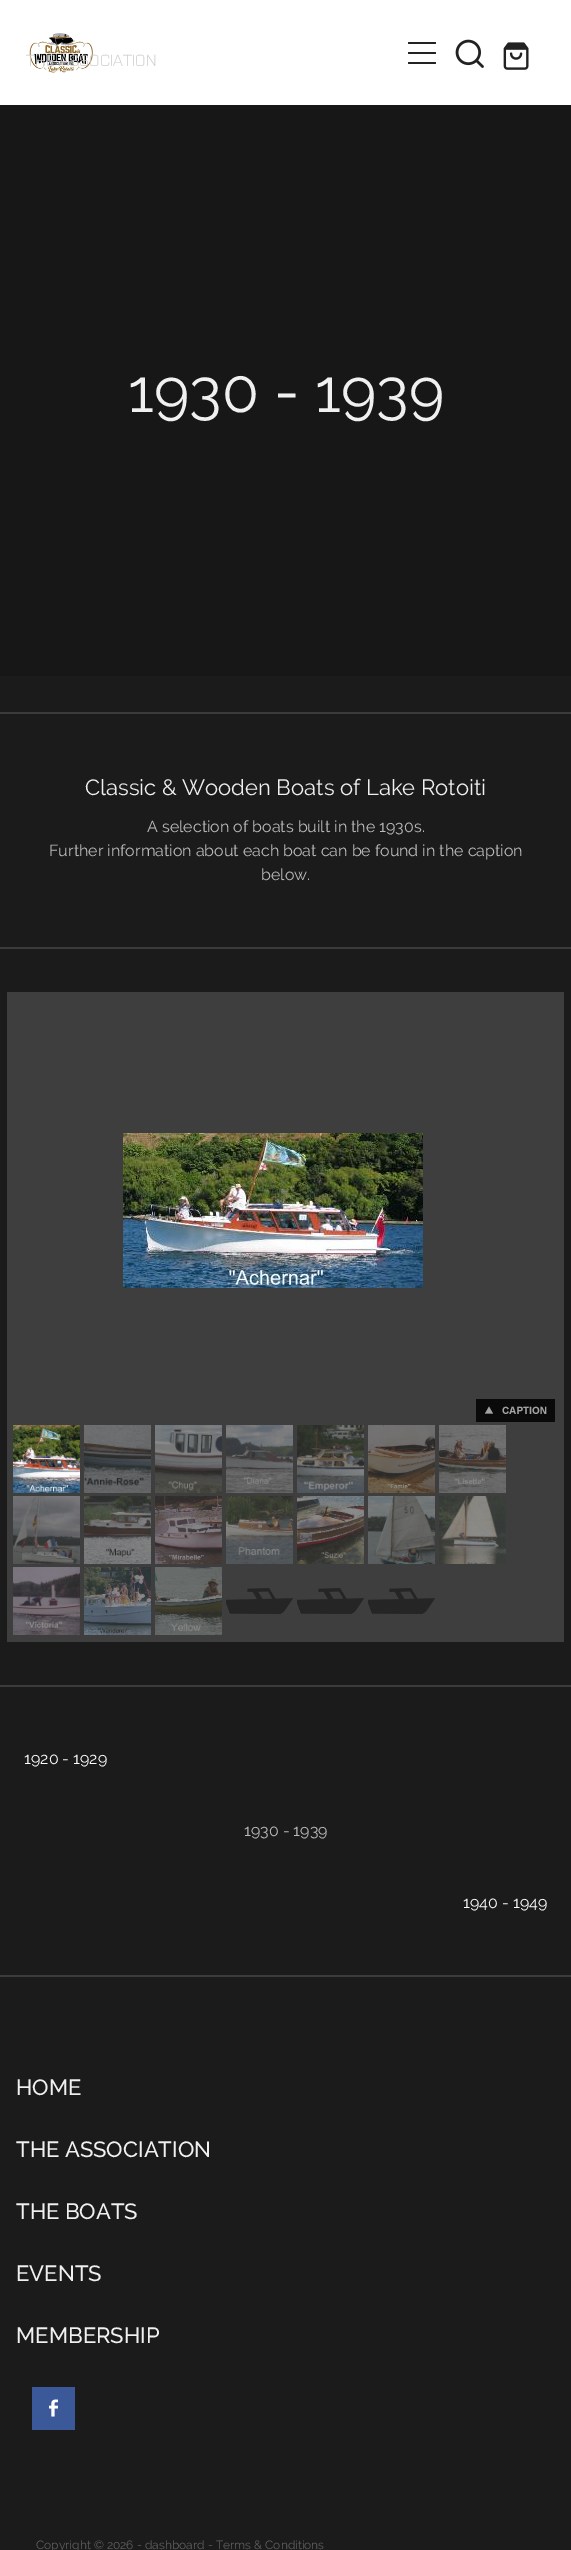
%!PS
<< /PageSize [571 2550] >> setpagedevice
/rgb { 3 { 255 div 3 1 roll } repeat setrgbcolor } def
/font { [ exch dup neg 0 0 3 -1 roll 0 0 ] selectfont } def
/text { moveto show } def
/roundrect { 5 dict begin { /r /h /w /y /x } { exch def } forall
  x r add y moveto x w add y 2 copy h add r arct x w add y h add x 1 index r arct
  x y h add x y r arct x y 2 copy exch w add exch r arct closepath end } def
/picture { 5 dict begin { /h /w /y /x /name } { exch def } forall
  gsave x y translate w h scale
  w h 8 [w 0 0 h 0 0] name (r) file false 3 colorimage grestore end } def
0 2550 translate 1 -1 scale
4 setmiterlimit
27 27 27 rgb
0 0 571 2550 rectfill
255 255 255 rgb
0 0 571 105 rectfill
(img_01.rgb) 29 33 64 40 picture
34 34 34 rgb
408 52 28 2 1 roundrect fill
408 42 28 2 1 roundrect fill
408 62 28 2 1 roundrect fill
(img_02.rgb) 455 39 29 29 picture
(img_03.rgb) 503 42 26 28 picture
23 23 23 rgb
0 105 571 571 rectfill
59 59 59 rgb
0 712 571 2 rectfill
0 947 571 2 rectfill
62 62 62 rgb
7 992 557 650 rectfill
(img_04.rgb) 123 1133 300 155 picture
25 25 25 rgb
476 1399 79 23 rectfill
(img_05.rgb) 476 1399 79 23 picture
(img_06.rgb) 13 1425 67 68 picture
(img_07.rgb) 84 1425 67 68 picture
(img_08.rgb) 155 1425 67 68 picture
(img_09.rgb) 226 1425 67 68 picture
(img_10.rgb) 297 1425 67 68 picture
(img_11.rgb) 368 1425 67 68 picture
(img_12.rgb) 439 1425 67 68 picture
(img_13.rgb) 13 1496 67 68 picture
(img_14.rgb) 84 1496 67 68 picture
(img_15.rgb) 155 1496 67 68 picture
(img_16.rgb) 226 1496 67 68 picture
(img_17.rgb) 297 1496 67 68 picture
(img_18.rgb) 368 1496 67 68 picture
(img_19.rgb) 439 1496 67 68 picture
(img_20.rgb) 13 1567 67 68 picture
(img_21.rgb) 84 1567 67 68 picture
(img_22.rgb) 155 1567 67 68 picture
(img_23.rgb) 226 1588 67 26 picture
(img_24.rgb) 297 1588 67 26 picture
(img_24.rgb) 368 1588 67 26 picture
59 59 59 rgb
0 1685 571 2 rectfill
0 1975 571 2 rectfill
59 89 152 rgb
32 2387 43 43 rectfill
(img_25.rgb) 49 2399 9 18 picture
/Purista-Light 16 font
203 202 201 rgb
(THE ASSOCIATION) 26 66 text
/Raleway-Regular 60.5 font
240 240 240 rgb
(1930 - 1939) 128 412 text
/Raleway-Regular 22 font
(Classic & Wooden Boats of Lake Rotoiti) 85 795 text
/Raleway-Regular 16 font
187 187 187 rgb
(A selection of boats built in the 1930s.) 147 832 text
(Further information about each boat can be found in the caption) 49 856 text
(below.) 261 880 text
255 255 255 rgb
(1920 - 1929) 24 1764 text
187 187 187 rgb
(1930 - 1939) 244 1836 text
255 255 255 rgb
(1940 - 1949) 463 1908 text
/Raleway-Medium 22 font
240 240 240 rgb
(HOME) 16 2095 text
(THE ASSOCIATION) 16 2157 text
(THE BOATS) 16 2219 text
(EVENTS) 16 2281 text
(MEMBERSHIP) 16 2343 text
/Raleway-Regular 12 font
95 95 95 rgb
(Copyright © 2026 - dashboard - Terms & Conditions) 36 2549 text
showpage
